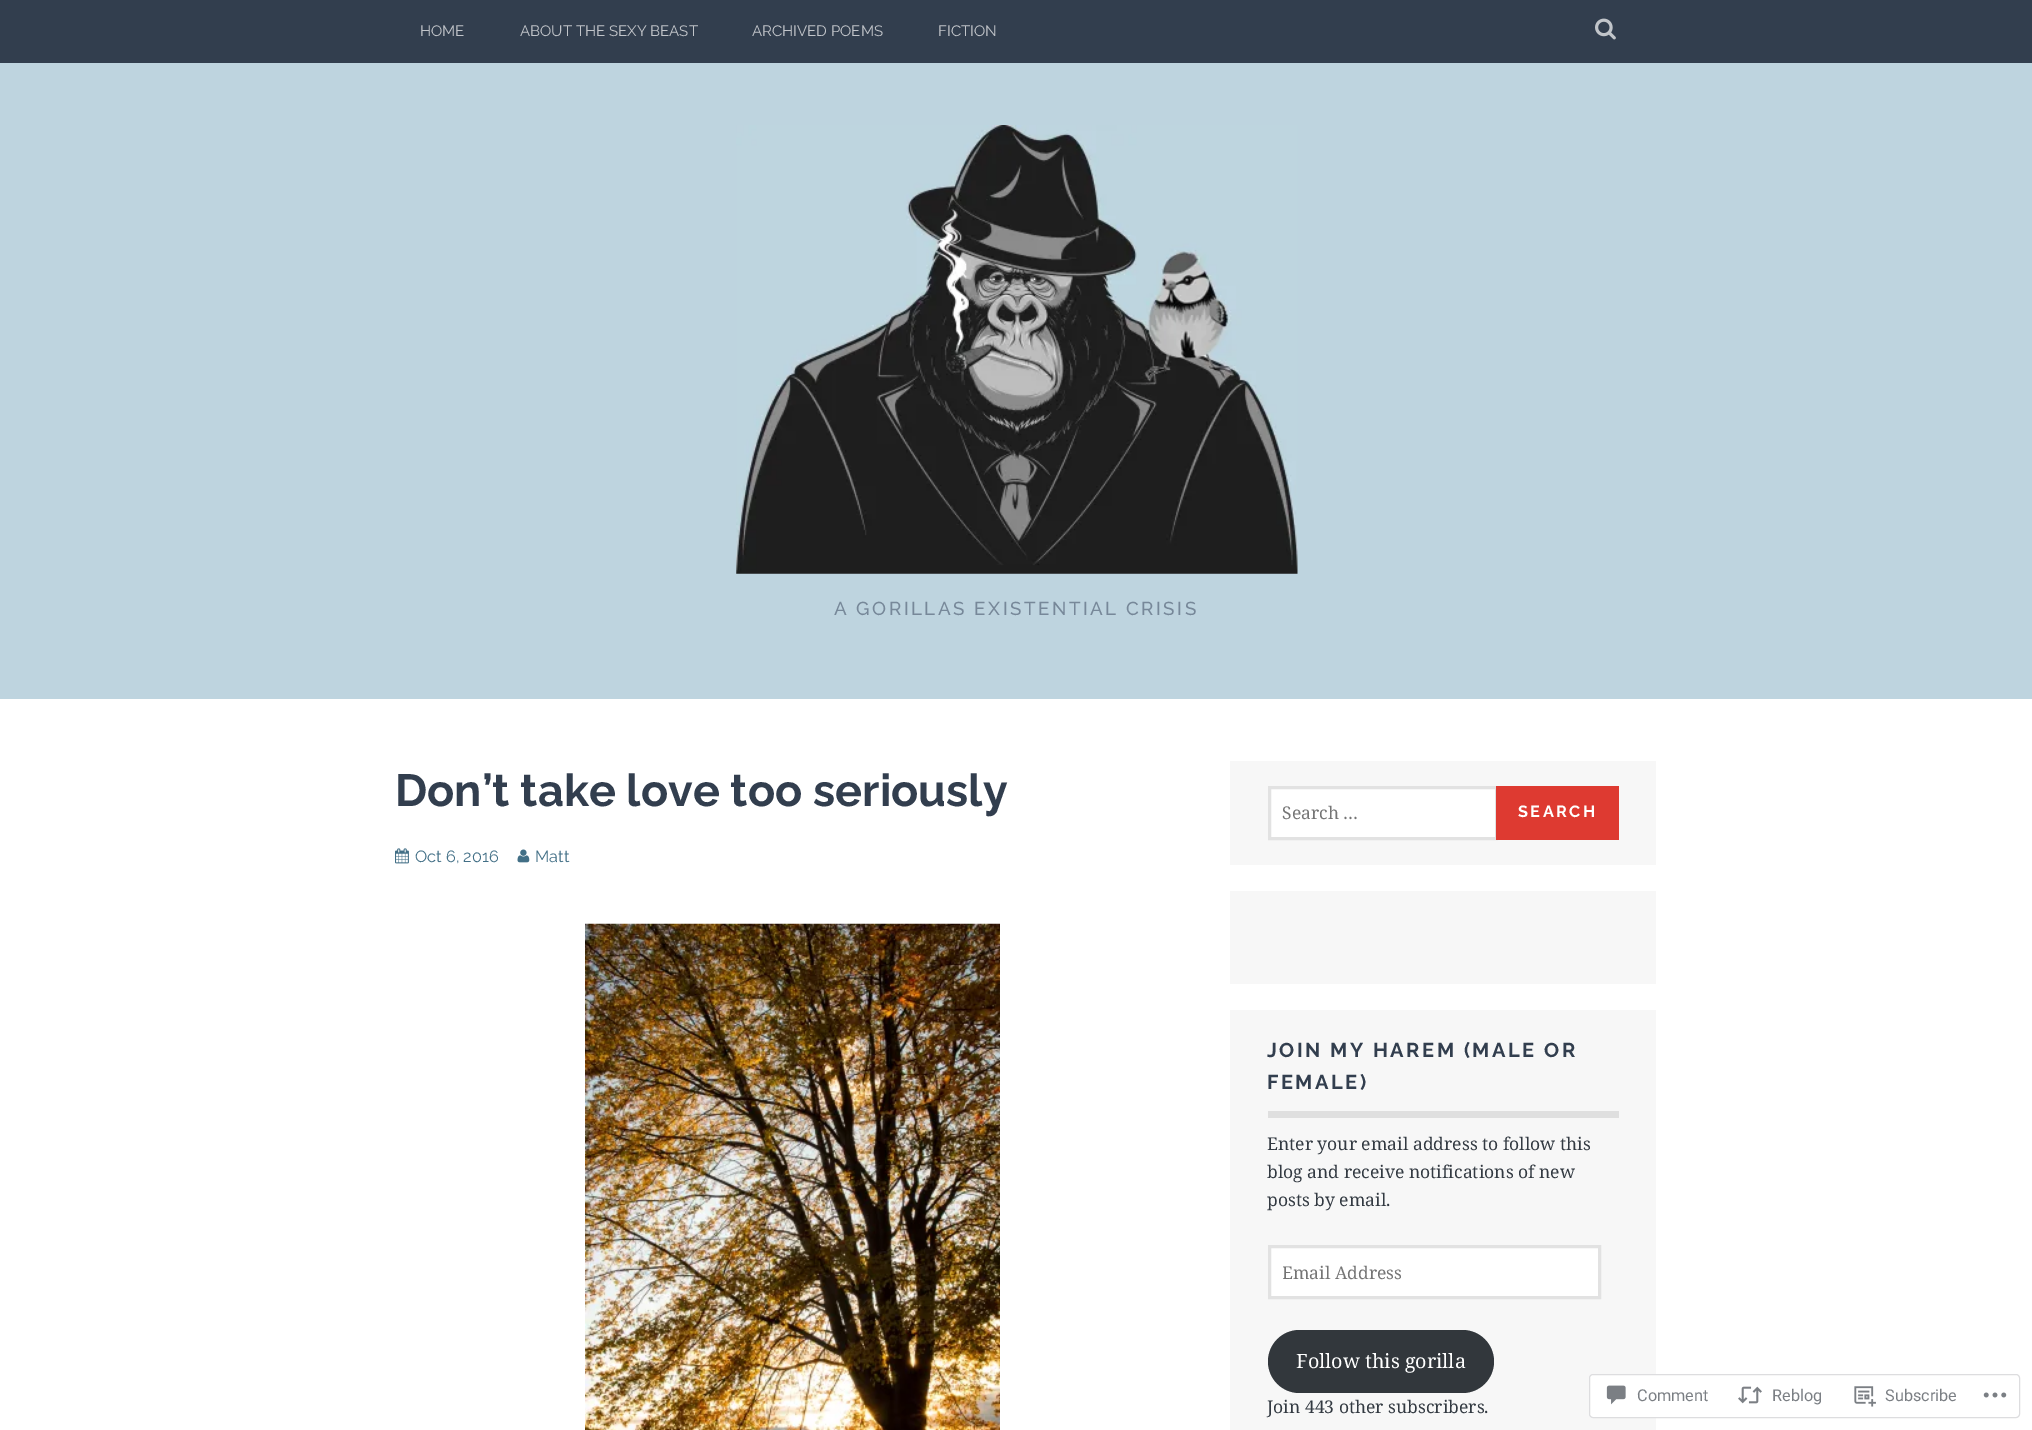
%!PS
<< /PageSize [2032 1430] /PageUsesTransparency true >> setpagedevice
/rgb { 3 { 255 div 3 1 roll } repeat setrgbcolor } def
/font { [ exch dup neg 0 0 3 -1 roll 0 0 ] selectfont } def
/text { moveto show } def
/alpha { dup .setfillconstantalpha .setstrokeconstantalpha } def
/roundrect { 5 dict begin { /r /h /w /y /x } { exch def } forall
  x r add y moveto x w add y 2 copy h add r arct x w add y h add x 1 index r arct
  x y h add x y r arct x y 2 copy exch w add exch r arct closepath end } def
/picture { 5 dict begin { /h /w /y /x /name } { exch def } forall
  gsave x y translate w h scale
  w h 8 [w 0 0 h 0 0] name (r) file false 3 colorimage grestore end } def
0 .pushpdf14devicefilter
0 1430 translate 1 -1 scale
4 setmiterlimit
255 255 255 rgb
0 0 2032 1430 rectfill
50 62 78 rgb
0 0 2032 63 rectfill
(img_01.rgb) 1595 18 21 22 picture
190 212 223 rgb
0 63 2032 636 rectfill
(img_02.rgb) 736 125 562 449 picture
(img_03.rgb) 395 848 14 16 picture
(img_04.rgb) 517 849 13 14 picture
(img_05.rgb) 585 923 415 507 picture
247 247 247 rgb
1230 761 426 104 rectfill
255 255 255 rgb
1269.5 787.5 moveto 227 0 rlineto 0 51 rlineto -227 0 rlineto closepath gsave fill grestore
226 226 226 rgb
3 setlinewidth
stroke
222 58 49 rgb
1496 786 123 54 rectfill
247 247 247 rgb
1230 891 426 93 rectfill
1230 1010 426 420 rectfill
223 223 223 rgb
1268 1111 351 7 rectfill
255 255 255 rgb
1269.5 1246.5 moveto 330 0 rlineto 0 51 rlineto -330 0 rlineto closepath gsave fill grestore
226 226 226 rgb
stroke
50 55 60 rgb
1268 1330 226 63 31.5 roundrect fill
0.98 alpha
255 255 255 rgb
1589 1374 431 44 4 roundrect fill
220 220 222 rgb
1 setlinewidth
1589.5 1374.5 430 43 3.5 roundrect stroke
1 alpha
(img_06.rgb) 1606 1385 20 20 picture
(img_07.rgb) 1738 1386 24 18 picture
(img_08.rgb) 1854 1386 22 21 picture
(img_09.rgb) 1983 1392 24 6 picture
/Raleway-Regular 15 font
194 197 202 rgb
(HOME) 420 36 text
(ABOUT THE SEXY BEAST) 520 36 text
(ARCHIVED POEMS) 752 36 text
(FICTION) 938 36 text
/Raleway-Medium 18.75 font
119 136 153 rgb
834 615 moveto 2.5 0 (A GORILLAS EXISTENTIAL CRISIS) ashow
/Raleway-Bold 45 font
50 62 78 rgb
(Don’t take love too seriously) 395 806 text
/Raleway-Regular 16.25 font
66 111 134 rgb
(Oct 6, 2016) 415 862 text
(Matt) 535 862 text
/NotoSerif-Regular 17.5 font
117 117 117 rgb
(Search …) 1282 819 text
/Raleway-Bold 16.25 font
255 255 255 rgb
1518 817 moveto 2.5 0 (SEARCH) ashow
/Raleway-Bold 20 font
50 62 78 rgb
1267 1057 moveto 2.5 0 (JOIN MY HAREM \(MALE OR) ashow
1267 1089 moveto 2.5 0 (FEMALE\)) ashow
/NotoSerif-Regular 17.5 font
51 58 66 rgb
(Enter your email address to follow this) 1267 1150 text
(blog and receive notifications of new) 1267 1178 text
(posts by email.) 1267 1206 text
gsave
1283 1260 303 24 rectclip
117 117 117 rgb
(Email Address) 1282 1279 text
grestore
/NotoSerif-Regular 19.75 font
255 255 255 rgb
(Follow this gorilla) 1296 1368 text
/NotoSerif-Regular 17.5 font
51 58 66 rgb
(Join 443 other subscribers.) 1267 1413 text
/Roboto-Regular 16.25 font
123 127 132 rgb
(Comment) 1637 1401 text
(Reblog) 1772 1401 text
(Subscribe) 1885 1401 text
.poppdf14devicefilter showpage
